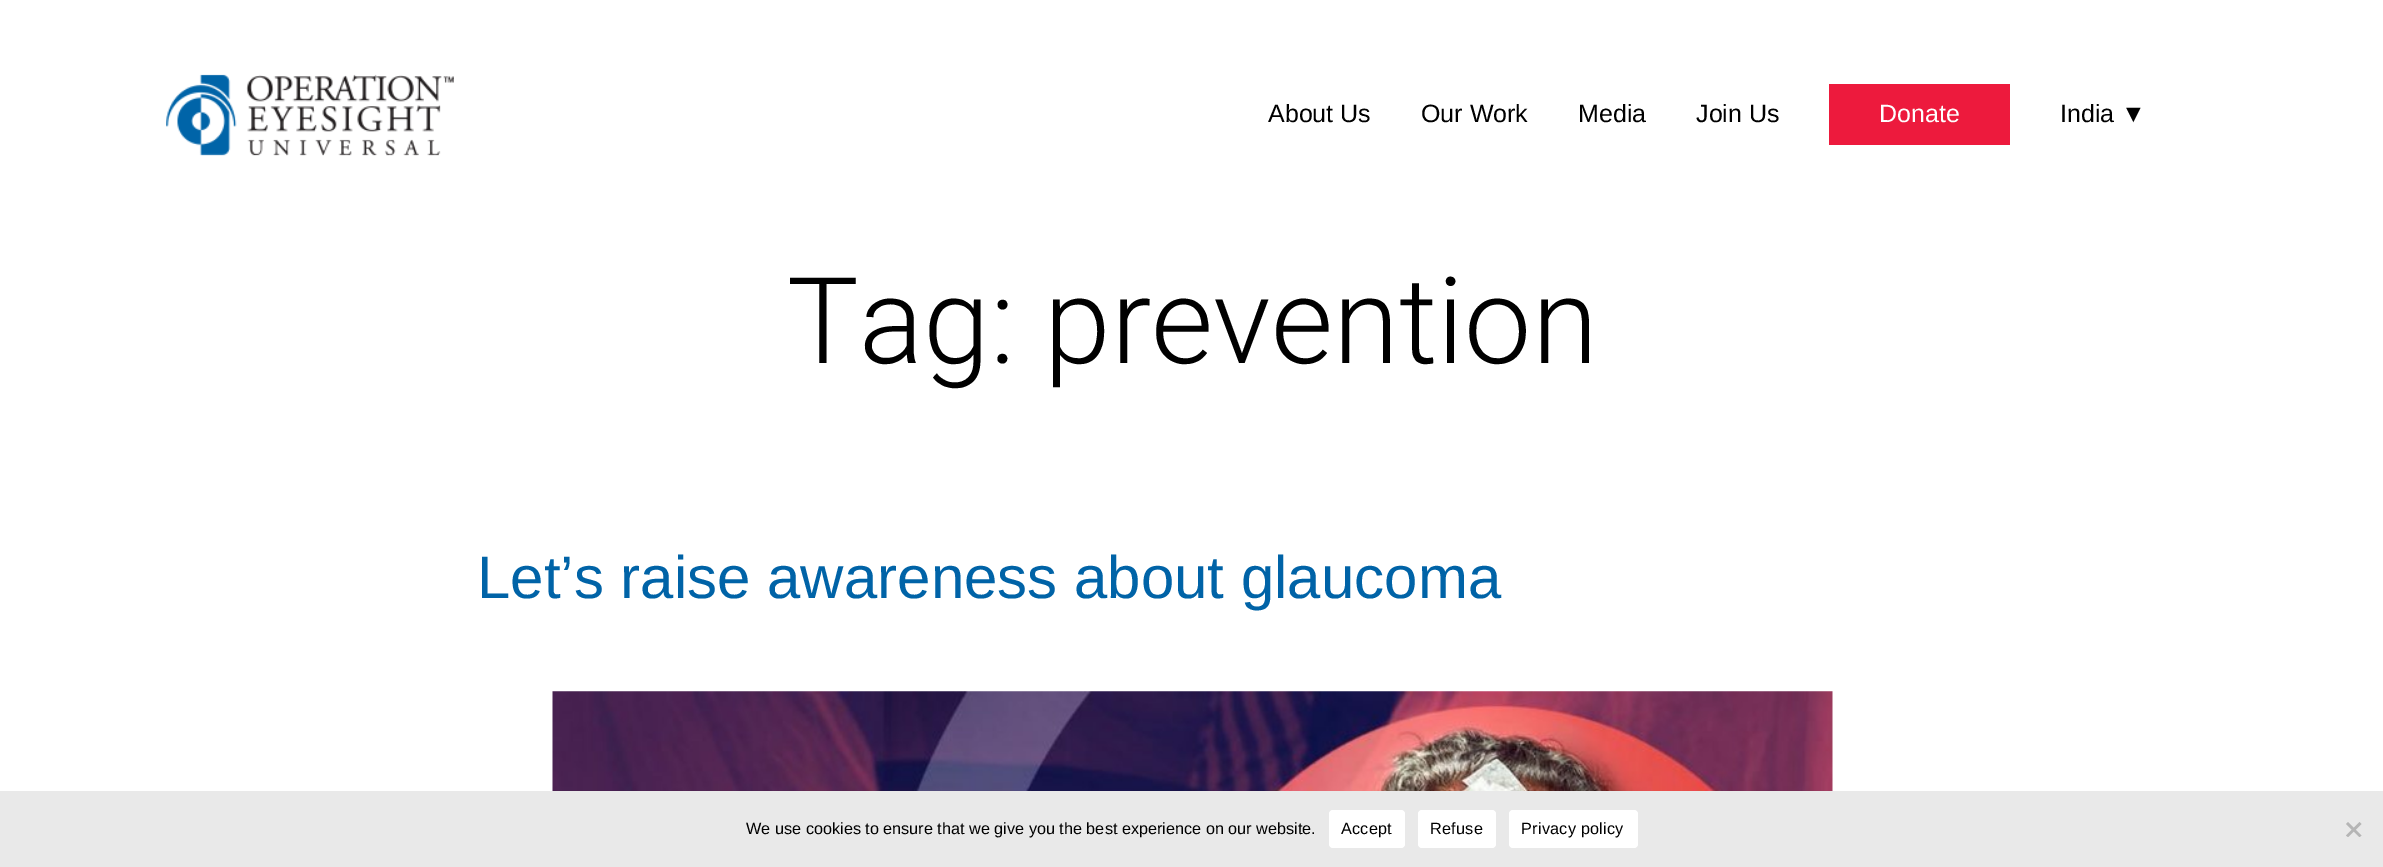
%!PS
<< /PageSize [2383 867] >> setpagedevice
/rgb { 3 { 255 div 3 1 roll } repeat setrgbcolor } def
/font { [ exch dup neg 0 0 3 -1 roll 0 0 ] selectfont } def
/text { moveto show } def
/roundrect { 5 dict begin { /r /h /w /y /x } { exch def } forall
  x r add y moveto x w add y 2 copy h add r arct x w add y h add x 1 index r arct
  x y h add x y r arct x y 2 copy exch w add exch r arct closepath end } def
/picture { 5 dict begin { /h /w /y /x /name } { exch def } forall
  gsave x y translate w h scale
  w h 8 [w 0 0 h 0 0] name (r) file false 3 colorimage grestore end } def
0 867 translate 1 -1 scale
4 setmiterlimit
255 255 255 rgb
0 0 2383 867 rectfill
(img_01.rgb) 166 74 288 82 picture
237 26 61 rgb
1829 84 181 61 rectfill
(img_02.rgb) 552 691 1281 100 picture
233 233 233 rgb
0 791 2383 76 rectfill
255 255 255 rgb
1329 810 76 38 4 roundrect fill
1418 810 78 38 4 roundrect fill
1509 810 129 38 4 roundrect fill
181 181 181 rgb
2359.5 822 moveto 2 2 rlineto -13.5 13 rlineto -2 -1.5 rlineto closepath fill
2346 824 moveto 2 -2 rlineto 13.5 13.5 rlineto -2 1.5 rlineto closepath fill
/LiberationSans-Regular 25 font
0 0 0 rgb
(About Us) 1268 122 text
(Our Work) 1421 122 text
(Media) 1578 122 text
(Join Us) 1696 122 text
255 255 255 rgb
(Donate) 1879 122 text
0 0 0 rgb
(India ▼) 2060 122 text
/Roboto-Light 120 font
(Tag: prevention) 787 363 text
/LiberationSans-Regular 60 font
0 99 167 rgb
(Let’s raise awareness about glaucoma) 477 598 text
/LiberationSans-Regular 16.25 font
0 0 0 rgb
(We use cookies to ensure that we give you the best experience on our website.) 746 834 text
1341 834 moveto 0.25 0 (Accept) ashow
1430 834 moveto 0.25 0 (Refuse) ashow
1521 834 moveto 0.25 0 (Privacy policy) ashow
showpage
